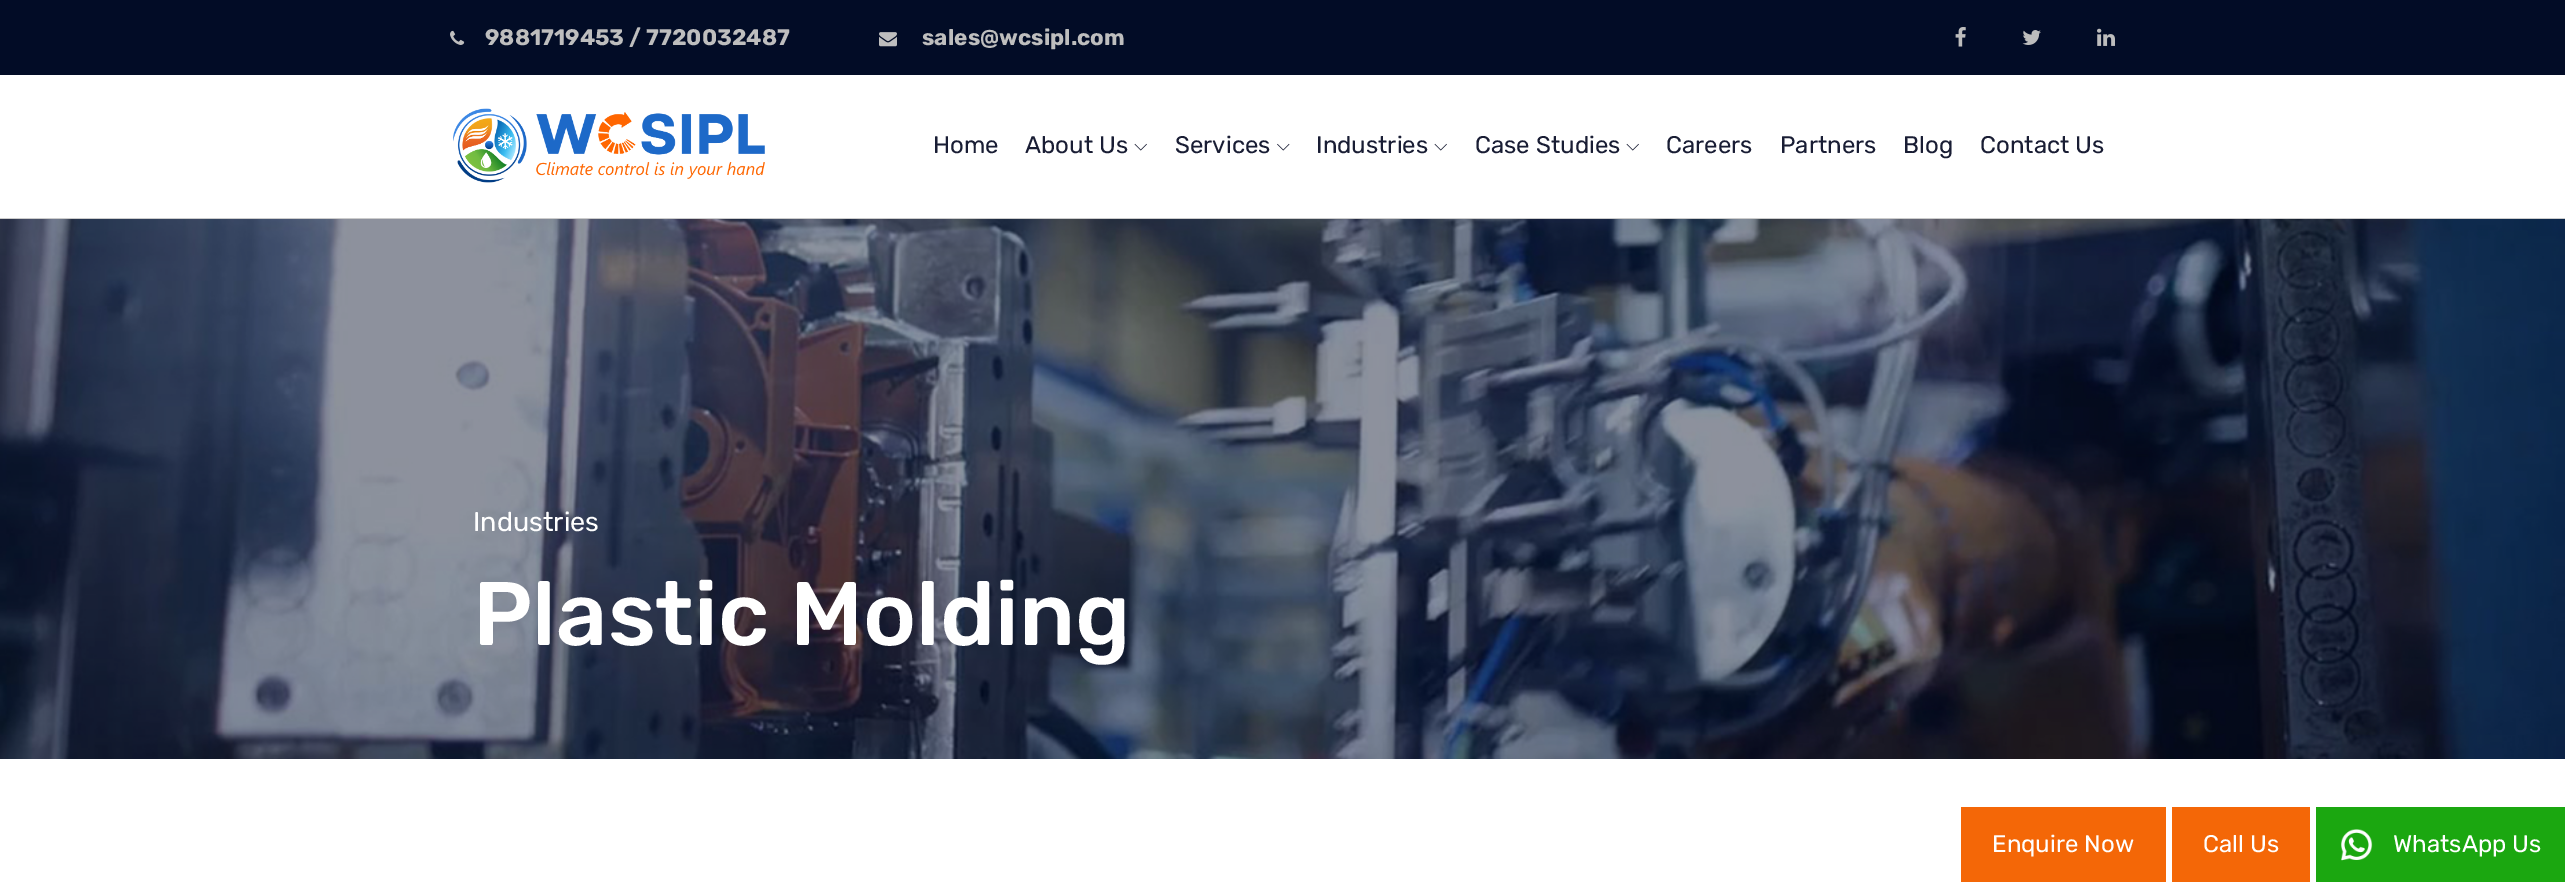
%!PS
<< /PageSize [2565 882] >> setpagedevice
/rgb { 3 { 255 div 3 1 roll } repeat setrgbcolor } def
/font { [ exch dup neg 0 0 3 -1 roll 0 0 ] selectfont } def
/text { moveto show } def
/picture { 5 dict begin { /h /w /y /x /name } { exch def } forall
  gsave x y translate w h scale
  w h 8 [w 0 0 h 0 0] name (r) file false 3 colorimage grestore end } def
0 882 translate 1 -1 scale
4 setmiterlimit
255 255 255 rgb
0 0 2565 882 rectfill
204 204 204 rgb
0 218 2565 1 rectfill
2 12 38 rgb
0 0 2565 75 rectfill
(img_01.rgb) 450 30 15 15 picture
(img_02.rgb) 879 32 18 15 picture
(img_03.rgb) 1955 27 11 20 picture
(img_04.rgb) 2022 30 19 15 picture
(img_05.rgb) 2097 28 18 18 picture
(img_06.rgb) 453 108 312 75 picture
(img_07.rgb) 1134 143 13 8 picture
(img_08.rgb) 1277 143 13 8 picture
(img_07.rgb) 1434 143 13 8 picture
(img_07.rgb) 1626 143 13 8 picture
(img_09.rgb) 0 219 2565 540 picture
244 103 7 rgb
1961 807 205 75 rectfill
2172 807 138 75 rectfill
27 167 16 rgb
2316 807 249 75 rectfill
(img_10.rgb) 2341 829 32 32 picture
/Rubik-Bold 22.5 font
190 190 190 rgb
(9881719453 / 7720032487) 485 45 text
(sales@wcsipl.com) 922 45 text
/Rubik-Regular 24 font
25 29 52 rgb
(Home) 933 153 text
(About Us) 1025 153 text
(Services) 1175 153 text
(Industries) 1316 153 text
(Case Studies) 1475 153 text
(Careers) 1666 153 text
(Partners) 1780 153 text
(Blog) 1903 153 text
(Contact Us) 1980 153 text
/Rubik-Regular 27 font
255 255 255 rgb
(Industries) 473 531 text
/Rubik-Medium 90 font
(Plastic Molding) 473 645 text
/Rubik-Regular 24 font
(Enquire Now) 1992 852 text
(Call Us) 2203 852 text
(WhatsApp Us) 2393 852 text
showpage
